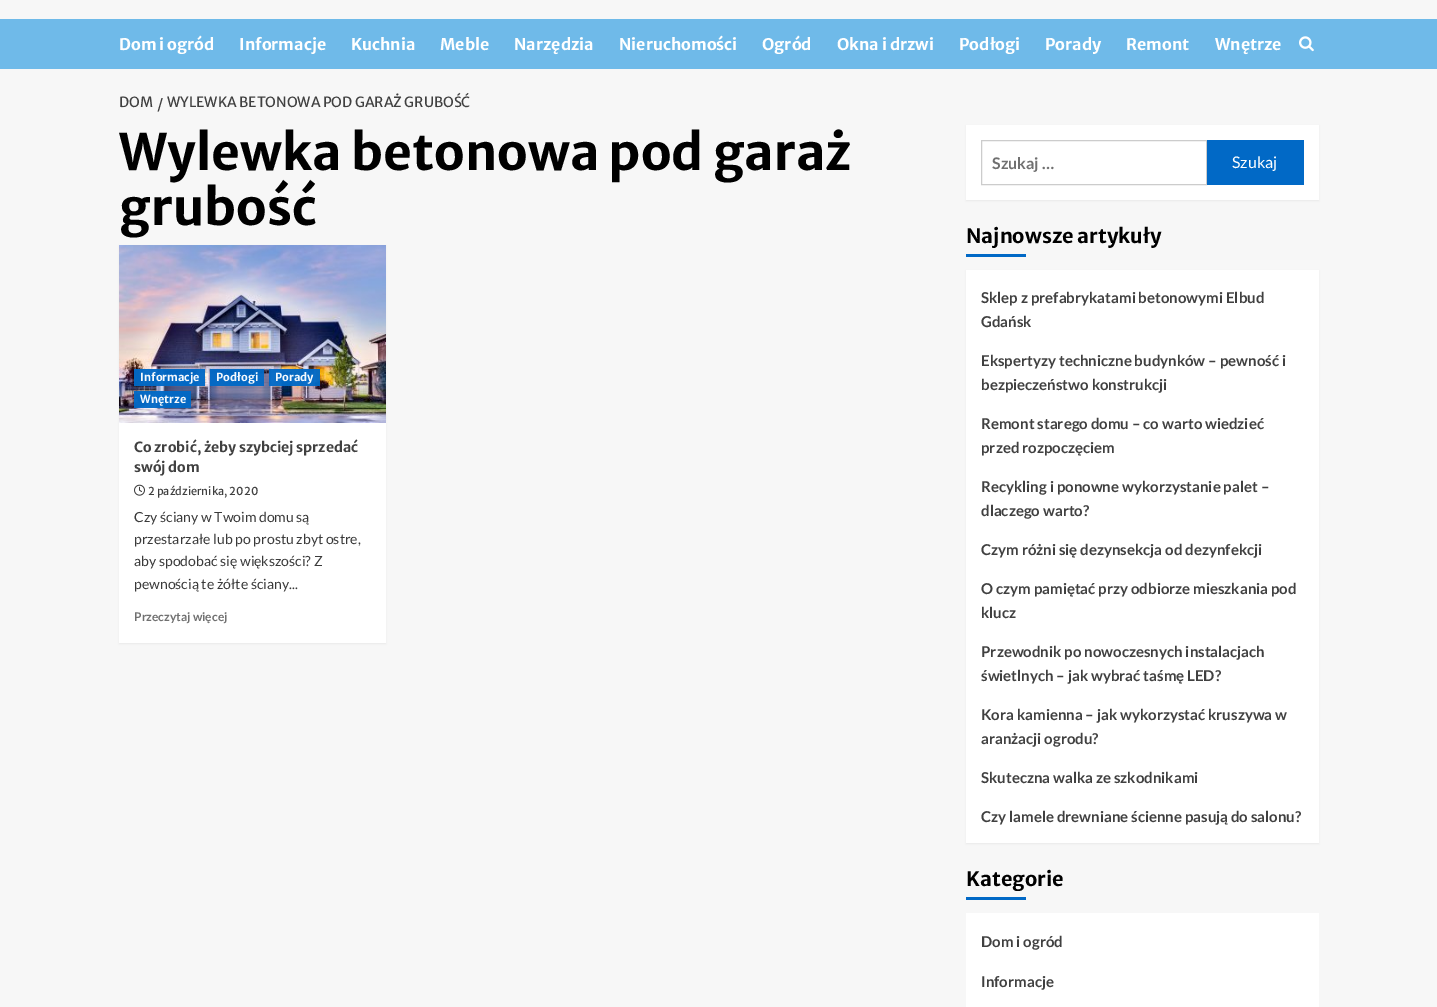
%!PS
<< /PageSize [1437 1007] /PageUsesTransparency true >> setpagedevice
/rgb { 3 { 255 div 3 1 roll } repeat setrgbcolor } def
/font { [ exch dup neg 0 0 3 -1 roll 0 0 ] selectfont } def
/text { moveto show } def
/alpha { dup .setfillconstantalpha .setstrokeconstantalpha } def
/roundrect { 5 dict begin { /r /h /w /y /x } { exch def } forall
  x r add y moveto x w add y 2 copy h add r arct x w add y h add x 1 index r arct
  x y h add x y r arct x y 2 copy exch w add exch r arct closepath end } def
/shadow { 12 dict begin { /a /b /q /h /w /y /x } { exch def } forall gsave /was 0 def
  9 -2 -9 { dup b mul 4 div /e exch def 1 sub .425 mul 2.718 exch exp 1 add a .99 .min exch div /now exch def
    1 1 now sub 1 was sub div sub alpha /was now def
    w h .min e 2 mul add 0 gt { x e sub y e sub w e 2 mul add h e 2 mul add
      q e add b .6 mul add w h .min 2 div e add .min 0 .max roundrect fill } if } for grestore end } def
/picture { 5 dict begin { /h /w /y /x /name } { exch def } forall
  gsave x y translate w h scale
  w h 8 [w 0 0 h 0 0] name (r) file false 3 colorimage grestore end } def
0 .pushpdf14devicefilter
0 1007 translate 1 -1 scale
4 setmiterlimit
247 247 247 rgb
0 0 1437 1007 rectfill
111 186 233 rgb
0 19 1437 50 rectfill
(img_01.rgb) 1299 36 15 16 picture
0 0 0 rgb
119 246 267 398 0 1 0.05 shadow
255 255 255 rgb
119 423 267 220 rectfill
(img_02.rgb) 119 245 267 178 picture
0.96 alpha
1 105 198 rgb
134 369 71 17 rectfill
210 369 54 17 rectfill
269 369 51 17 rectfill
134 391 57 17 rectfill
1 alpha
(img_03.rgb) 134 484 11 12 picture
0 0 0 rgb
966 126 353 75 0 1 0.05 shadow
255 255 255 rgb
966 125 353 75 rectfill
204 204 204 rgb
981.5 140.5 225 44 rectstroke
1 105 198 rgb
1207 140 97 45 rectfill
966 254 60 3 rectfill
0 0 0 rgb
966 271 353 573 0 1 0.05 shadow
255 255 255 rgb
966 270 353 573 rectfill
1 105 198 rgb
966 897 60 3 rectfill
255 255 255 rgb
966 913 353 94 rectfill
/MerriweatherSans-Bold 16 font
(Dom i ogród) 119 50 text
(Informacje) 239 50 text
(Kuchnia) 351 50 text
(Meble) 440 50 text
(Narzędzia) 514 50 text
(Nieruchomości) 619 50 text
(Ogród) 762 50 text
(Okna i drzwi) 837 50 text
(Podłogi) 959 50 text
(Porady) 1045 50 text
(Remont) 1126 50 text
(Wnętrze) 1215 50 text
/MerriweatherSans-Regular 14 font
64 64 64 rgb
(DOM) 119 107 text
(/) 157 109 text
(WYLEWKA BETONOWA POD GARAŻ GRUBOŚĆ) 167 107 text
/MerriweatherSans-Bold 50 font
0 0 0 rgb
(Wylewka betonowa pod garaż) 119 170 text
(grubość) 119 225 text
/MerriweatherSans-Bold 11 font
245 249 253 rgb
(Informacje) 140 381 text
(Podłogi) 216 381 text
(Porady) 275 381 text
(Wnętrze) 140 403 text
/MerriweatherSans-Bold 14 font
64 64 64 rgb
(Co zrobić, żeby szybciej sprzedać) 134 452 text
(swój dom) 134 472 text
/MerriweatherSans-Regular 11 font
(2 października, 2020) 148 495 text
/Lato-Regular 14 font
58 58 58 rgb
(Czy ściany w Twoim domu są) 134 522 text
(przestarzałe lub po prostu zbyt ostre,) 134 544 text
(aby spodobać się większości? Z) 134 566 text
(pewnością te żółte ściany...) 134 589 text
/Lato-Bold 12 font
112 112 112 rgb
(Przeczytaj więcej) 134 621 text
/Lato-Bold 16 font
(Szukaj …) 992 169 text
/Lato-Regular 16 font
255 255 255 rgb
(Szukaj) 1232 168 text
/MerriweatherSans-Bold 20 font
0 0 0 rgb
(Najnowsze artykuły) 966 243 text
/Lato-Bold 15 font
64 64 64 rgb
(Sklep z prefabrykatami betonowymi Elbud) 981 303 text
(Gdańsk) 981 327 text
(Ekspertyzy techniczne budynków – pewność i) 981 366 text
(bezpieczeństwo konstrukcji) 981 390 text
(Remont starego domu – co warto wiedzieć) 981 429 text
(przed rozpoczęciem) 981 453 text
(Recykling i ponowne wykorzystanie palet –) 981 492 text
(dlaczego warto?) 981 516 text
(Czym różni się dezynsekcja od dezynfekcji) 981 555 text
(O czym pamiętać przy odbiorze mieszkania pod) 981 594 text
(klucz) 981 618 text
(Przewodnik po nowoczesnych instalacjach) 981 657 text
(świetlnych – jak wybrać taśmę LED?) 981 681 text
(Kora kamienna – jak wykorzystać kruszywa w) 981 720 text
(aranżacji ogrodu?) 981 744 text
(Skuteczna walka ze szkodnikami) 981 783 text
(Czy lamele drewniane ścienne pasują do salonu?) 981 822 text
/MerriweatherSans-Bold 20 font
0 0 0 rgb
(Kategorie) 966 886 text
/Lato-Bold 15 font
64 64 64 rgb
(Dom i ogród) 981 947 text
(Informacje) 981 987 text
.poppdf14devicefilter showpage
